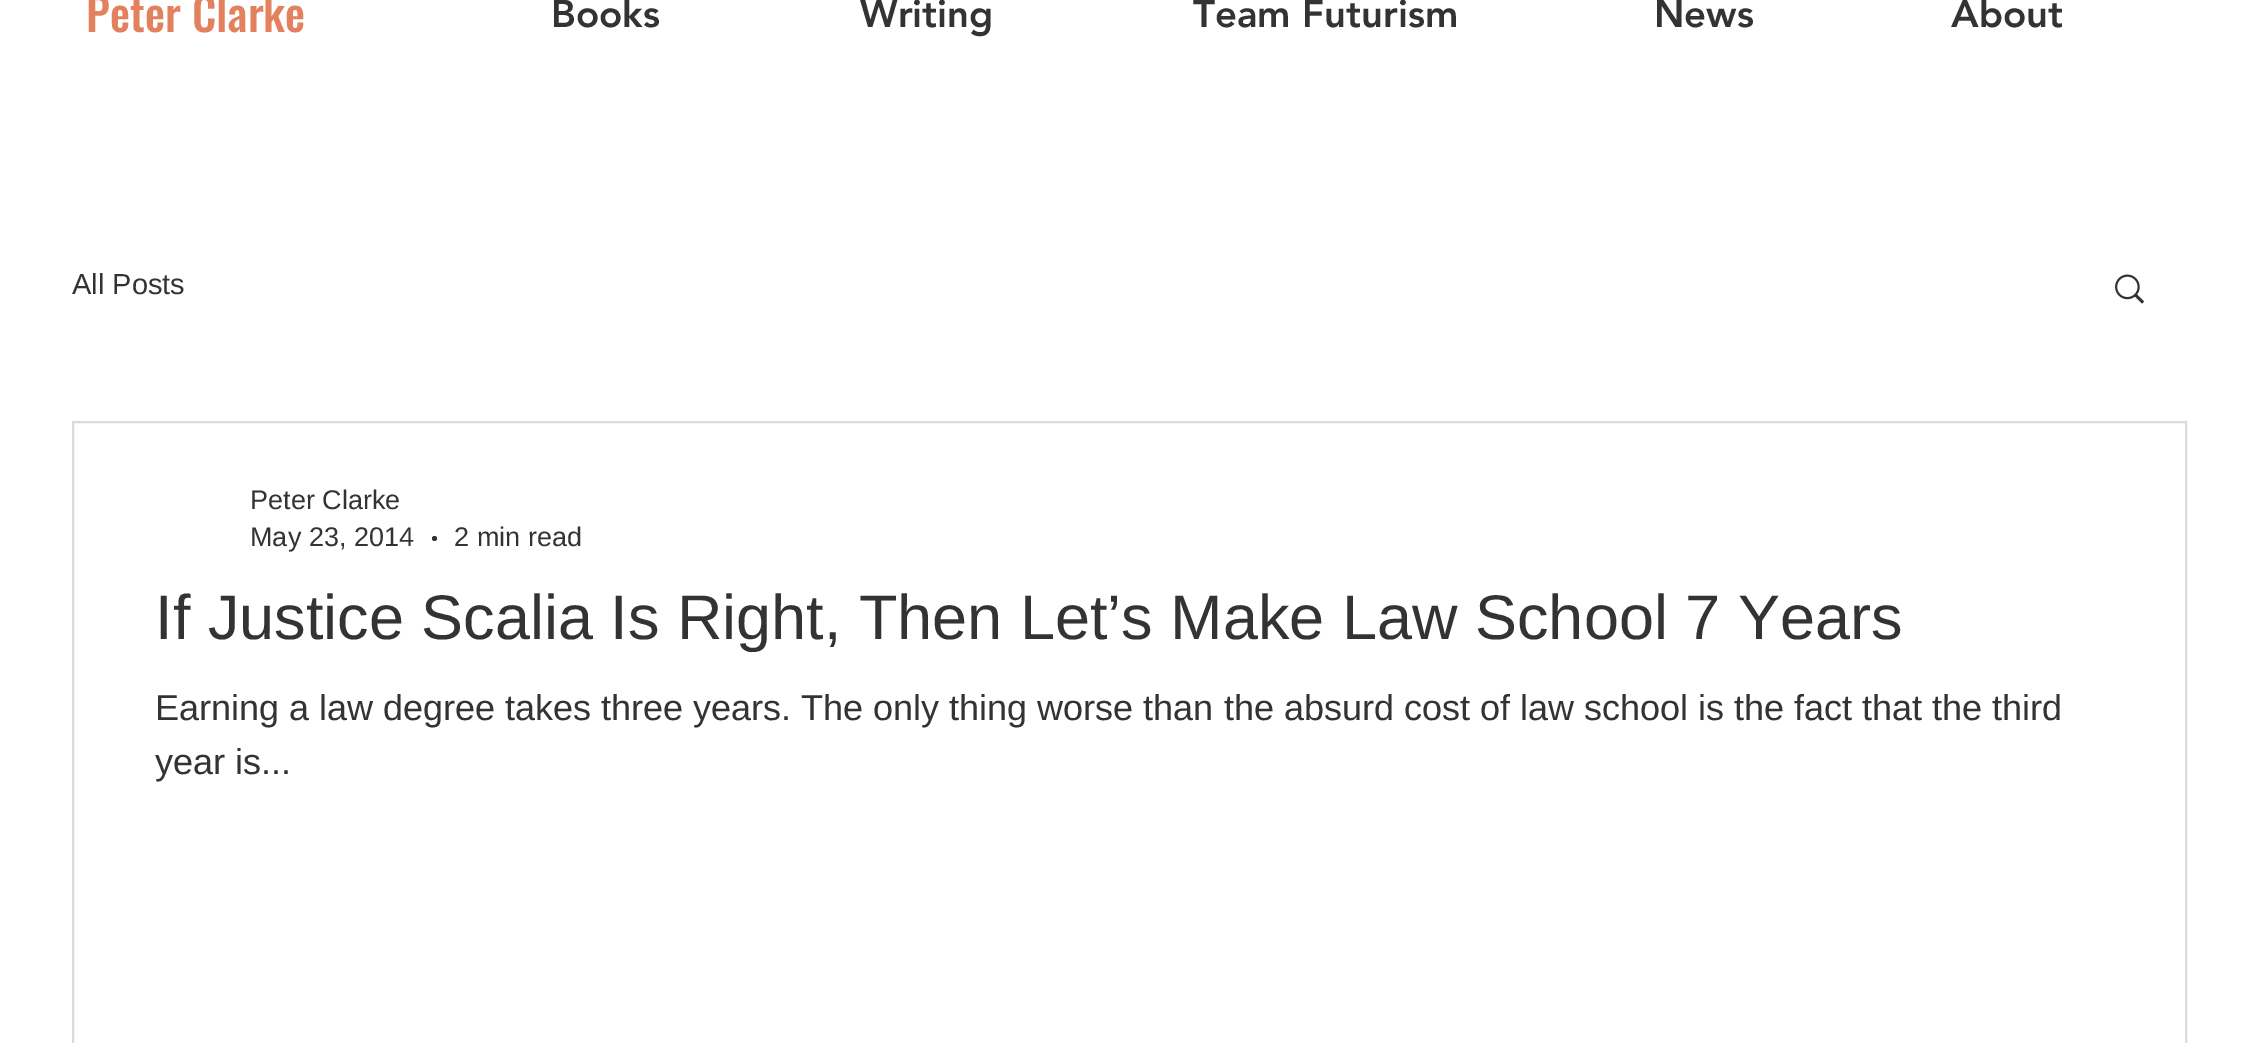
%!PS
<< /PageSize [2259 1043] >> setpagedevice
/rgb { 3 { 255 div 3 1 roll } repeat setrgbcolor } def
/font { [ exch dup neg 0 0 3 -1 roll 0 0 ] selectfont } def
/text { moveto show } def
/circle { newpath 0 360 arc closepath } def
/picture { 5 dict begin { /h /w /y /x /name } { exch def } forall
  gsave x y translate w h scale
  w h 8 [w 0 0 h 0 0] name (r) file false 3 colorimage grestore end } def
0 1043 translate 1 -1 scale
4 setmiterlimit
255 255 255 rgb
0 0 2259 1043 rectfill
(img_01.rgb) 2115 274 29 30 picture
219 219 219 rgb
2 setlinewidth
73 422 2113 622 rectstroke
51 51 51 rgb
434.5 538.5 2.5 circle fill
/Oswald-Medium 45 font
227 129 95 rgb
(Peter Clarke) 86 32 text
/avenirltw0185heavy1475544-Black 38.25 font
51 51 51 rgb
(Books) 551 27 text
(Writing) 860 27 text
(Team Futurism) 1193 27 text
(News) 1654 27 text
(About) 1951 27 text
/LiberationSans-Regular 29 font
(All Posts) 72 294 text
/LiberationSans-Regular 27 font
(Peter Clarke) 250 509 text
(May 23, 2014) 250 546 text
(2 min read) 454 546 text
/LiberationSans-Regular 63 font
(If Justice Scalia Is Right, Then Let’s Make Law School 7 Years) 155 639 text
/LiberationSans-Regular 36 font
(Earning a law degree takes three years. The only thing worse than the absurd cost of law school is the fact that the third) 155 720 text
(year is...) 155 774 text
showpage
